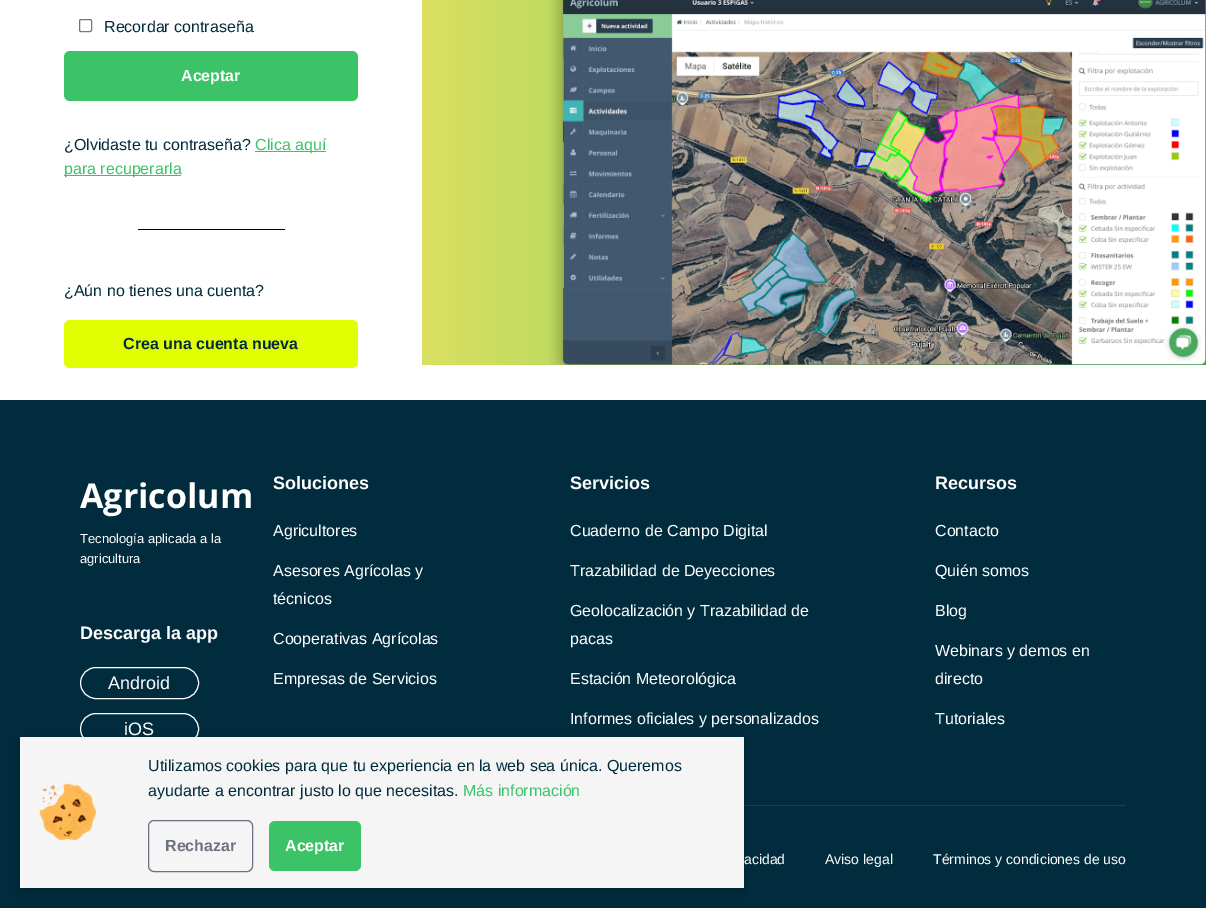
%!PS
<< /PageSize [1206 908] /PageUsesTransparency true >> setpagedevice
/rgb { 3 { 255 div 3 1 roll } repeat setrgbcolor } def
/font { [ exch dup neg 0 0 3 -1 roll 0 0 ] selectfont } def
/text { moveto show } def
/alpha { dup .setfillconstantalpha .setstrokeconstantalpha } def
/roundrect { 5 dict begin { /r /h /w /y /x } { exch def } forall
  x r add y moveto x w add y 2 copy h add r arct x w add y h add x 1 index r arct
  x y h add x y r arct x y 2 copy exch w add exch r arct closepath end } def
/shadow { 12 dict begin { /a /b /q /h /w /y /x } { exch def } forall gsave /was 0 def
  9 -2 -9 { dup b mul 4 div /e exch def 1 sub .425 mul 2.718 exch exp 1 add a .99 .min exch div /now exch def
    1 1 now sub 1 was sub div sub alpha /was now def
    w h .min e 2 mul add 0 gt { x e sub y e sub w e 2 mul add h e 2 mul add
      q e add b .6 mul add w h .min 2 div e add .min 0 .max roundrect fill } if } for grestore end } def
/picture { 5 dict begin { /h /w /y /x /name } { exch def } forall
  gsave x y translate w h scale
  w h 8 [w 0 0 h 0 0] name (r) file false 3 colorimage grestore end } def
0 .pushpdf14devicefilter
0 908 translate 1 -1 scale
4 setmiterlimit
255 255 255 rgb
0 0 1206 908 rectfill
118 118 118 rgb
79.5 19.5 12 12 1.5 roundrect stroke
60 195 103 rgb
64 51 294 50 6 roundrect fill
255 151 71 1 rectfill
64 175 117 1 rectfill
0 0 0 rgb
138 229 147 1 rectfill
225 255 0 rgb
64 320 294 48 6 roundrect fill
gsave 422 0 moveto 784 0 rlineto 0 365 rlineto -784 0 rlineto closepath clip newpath
<< /ShadingType 2 /ColorSpace /DeviceRGB /Coords [422 19 1206 19] /Extend [true true] /Function << /FunctionType 2 /Domain [0 1] /C0 [0.859 0.878 0.376] /C1 [0.235 0.765 0.404] /N 1 >> >> shfill grestore
(img_01.rgb) 549 0 657 365 picture
0 44 61 rgb
0 400 1206 508 rectfill
255 255 255 rgb
80.5 667.5 118 31 15.5 roundrect stroke
80.5 713.5 118 31 15.5 roundrect stroke
26 65 80 rgb
744 805 382 1 rectfill
0 0 0 rgb
20 741 724 151 0 6 0.2 shadow
245 245 245 rgb
20 737 724 151 rectfill
(img_02.rgb) 39 783 58 58 picture
107 114 128 rgb
148.5 820.5 104 51 5.5 roundrect stroke
60 195 103 rgb
269 821 92 50 6 roundrect fill
/LiberationSans-Regular 16 font
0 44 61 rgb
(Recordar contraseña) 104 32 text
/LiberationSans-Bold 16 font
255 255 255 rgb
(Aceptar) 181 81 text
/LiberationSans-Regular 16 font
0 44 61 rgb
(¿Olvidaste tu contraseña?) 64 150 text
60 195 103 rgb
(Clica aquí) 255 150 text
(para recuperarla) 64 174 text
0 44 61 rgb
(¿Aún no tienes una cuenta?) 64 296 text
/LiberationSans-Bold 16 font
(Crea una cuenta nueva) 123 349 text
/OpenSans-Bold 34 font
255 255 255 rgb
(Agricolum) 80 508 text
/LiberationSans-Regular 13 font
(Tecnología aplicada a la) 80 543 text
(agricultura) 80 563 text
/LiberationSans-Bold 18 font
(Descarga la app) 80 639 text
/LiberationSans-Regular 18 font
(Android) 108 689 text
(iOS) 124 735 text
/LiberationSans-Bold 18 font
(Soluciones) 273 489 text
/LiberationSans-Regular 16 font
(Agricultores) 273 536 text
(Asesores Agrícolas y) 273 576 text
(técnicos) 273 604 text
(Cooperativas Agrícolas) 273 644 text
(Empresas de Servicios) 273 684 text
/LiberationSans-Bold 18 font
(Servicios) 570 489 text
/LiberationSans-Regular 16 font
(Cuaderno de Campo Digital) 570 536 text
(Trazabilidad de Deyecciones) 570 576 text
(Geolocalización y Trazabilidad de) 570 616 text
(pacas) 570 644 text
(Estación Meteorológica) 570 684 text
(Informes oficiales y personalizados) 570 724 text
/LiberationSans-Bold 18 font
(Recursos) 935 489 text
/LiberationSans-Regular 16 font
(Contacto) 935 536 text
(Quién somos) 935 576 text
(Blog) 935 616 text
(Webinars y demos en) 935 656 text
(directo) 935 684 text
(Tutoriales) 935 724 text
/LiberationSans-Regular 14 font
(acidad) 744 864 text
(Aviso legal) 825 864 text
(Términos y condiciones de uso) 933 864 text
/LiberationSans-Regular 16 font
0 44 61 rgb
(Utilizamos cookies para que tu experiencia en la web sea única. Queremos) 148 771 text
(ayudarte a encontrar justo lo que necesitas.) 148 796 text
60 195 103 rgb
(Más información) 463 796 text
/LiberationSans-Bold 16 font
107 114 128 rgb
(Rechazar) 165 851 text
255 255 255 rgb
(Aceptar) 285 851 text
.poppdf14devicefilter showpage
